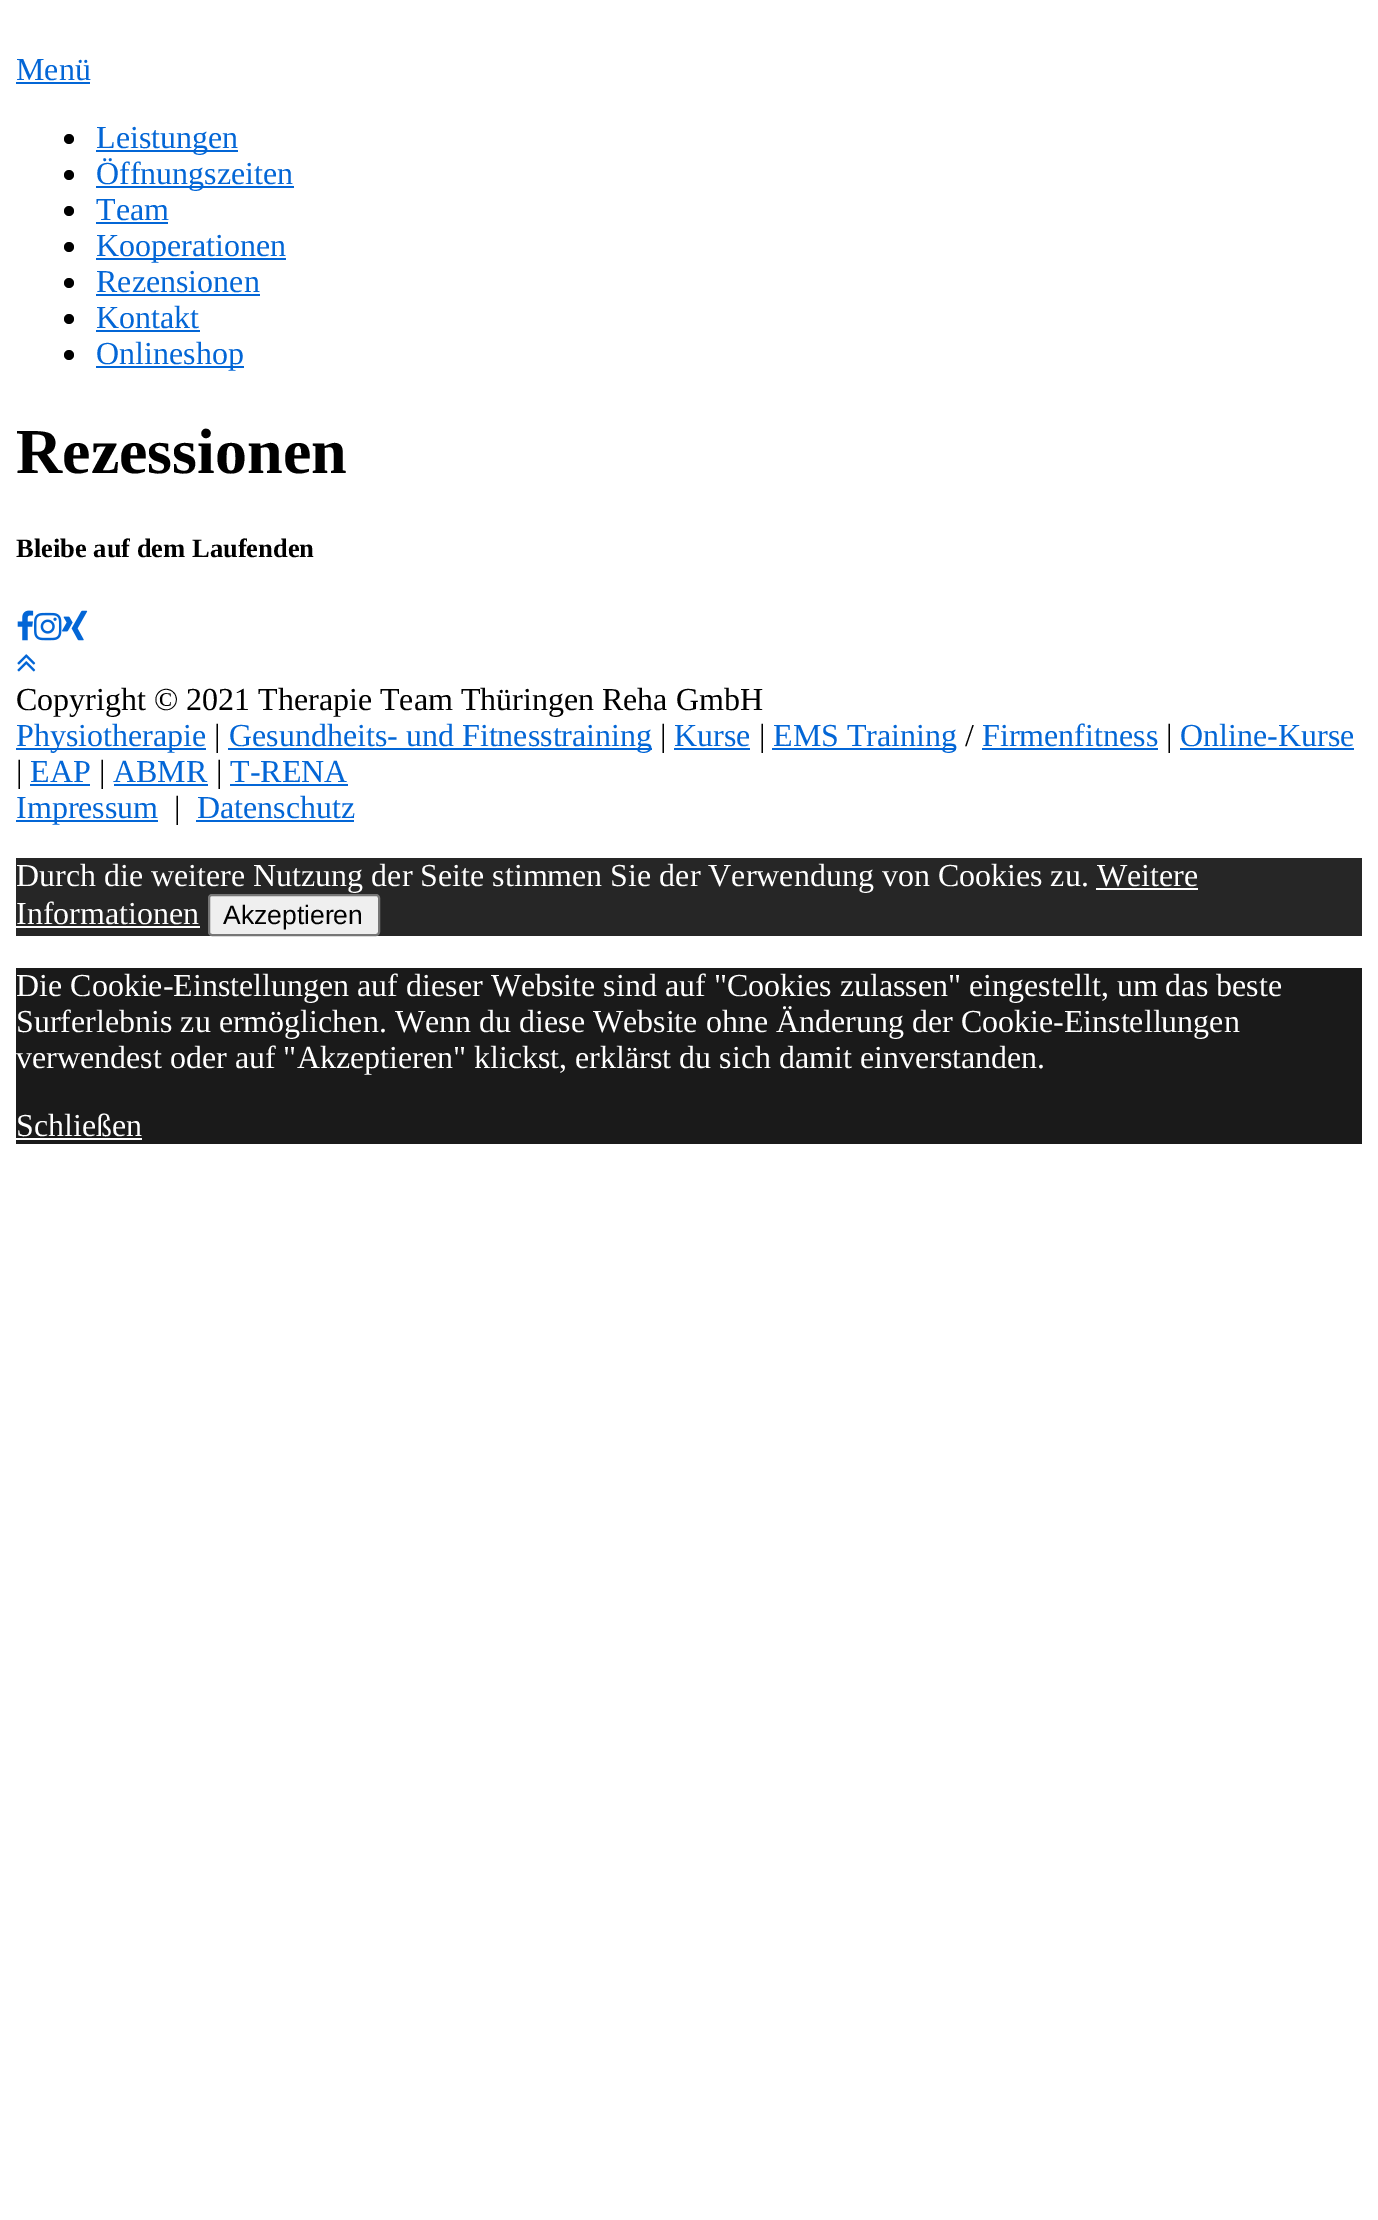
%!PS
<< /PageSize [1378 2220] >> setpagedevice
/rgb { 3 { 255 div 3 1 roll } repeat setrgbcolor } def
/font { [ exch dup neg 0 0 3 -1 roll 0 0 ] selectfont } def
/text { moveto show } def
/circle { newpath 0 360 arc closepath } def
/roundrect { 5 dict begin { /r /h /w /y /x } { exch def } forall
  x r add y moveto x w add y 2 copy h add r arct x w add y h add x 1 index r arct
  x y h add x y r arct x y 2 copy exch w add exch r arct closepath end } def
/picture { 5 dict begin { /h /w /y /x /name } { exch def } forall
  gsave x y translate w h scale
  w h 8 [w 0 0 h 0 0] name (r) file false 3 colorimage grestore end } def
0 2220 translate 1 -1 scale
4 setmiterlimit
255 255 255 rgb
0 0 1378 2220 rectfill
3 102 214 rgb
16 82 74 2 rectfill
0 0 0 rgb
69 139 5 circle fill
3 102 214 rgb
96 150 142 2 rectfill
0 0 0 rgb
69 175 5 circle fill
3 102 214 rgb
96 186 198 2 rectfill
0 0 0 rgb
69 211 5 circle fill
3 102 214 rgb
96 222 72 2 rectfill
0 0 0 rgb
69 247 5 circle fill
3 102 214 rgb
96 258 190 2 rectfill
0 0 0 rgb
69 283 5 circle fill
3 102 214 rgb
96 294 164 2 rectfill
0 0 0 rgb
69 319 5 circle fill
3 102 214 rgb
96 330 104 2 rectfill
0 0 0 rgb
69 355 5 circle fill
3 102 214 rgb
96 366 148 2 rectfill
(img_01.rgb) 17 610 17 31 picture
(img_02.rgb) 34 612 28 29 picture
(img_03.rgb) 62 610 26 31 picture
(img_04.rgb) 17 654 19 18 picture
16 748 190 2 rectfill
228 748 424 2 rectfill
674 748 76 2 rectfill
772 748 184 2 rectfill
982 748 176 2 rectfill
1180 748 174 2 rectfill
30 784 60 2 rectfill
114 784 94 2 rectfill
230 784 118 2 rectfill
16 820 142 2 rectfill
196 820 158 2 rectfill
38 38 38 rgb
16 858 1346 78 rectfill
255 255 255 rgb
1096 888 102 2 rectfill
16 926 184 2 rectfill
239 239 239 rgb
209 895 170 40 3 roundrect gsave fill grestore
118 118 118 rgb
2 setlinewidth
stroke
26 26 26 rgb
16 968 1346 176 rectfill
255 255 255 rgb
16 1138 126 2 rectfill
/LiberationSerif-Regular 32 font
3 102 214 rgb
(Menü) 16 80 text
(Leistungen) 96 148 text
(Öffnungszeiten) 96 184 text
(Team) 96 220 text
(Kooperationen) 96 256 text
(Rezensionen) 96 292 text
(Kontakt) 96 328 text
(Onlineshop) 96 364 text
/LiberationSerif-Bold 64 font
0 0 0 rgb
(Rezessionen) 16 473 text
/LiberationSerif-Bold 26.5 font
(Bleibe auf dem Laufenden) 16 557 text
/LiberationSerif-Regular 32 font
(Copyright © 2021 Therapie Team Thüringen Reha GmbH) 16 710 text
3 102 214 rgb
(Physiotherapie) 16 746 text
0 0 0 rgb
(|) 214 746 text
3 102 214 rgb
(Gesundheits- und Fitnesstraining) 229 746 text
0 0 0 rgb
(|) 660 746 text
3 102 214 rgb
(Kurse) 674 746 text
0 0 0 rgb
(|) 759 746 text
3 102 214 rgb
(EMS Training) 773 746 text
0 0 0 rgb
(/) 965 746 text
3 102 214 rgb
(Firmenfitness) 982 746 text
0 0 0 rgb
(|) 1166 746 text
3 102 214 rgb
(Online-Kurse) 1180 746 text
0 0 0 rgb
(|) 16 782 text
3 102 214 rgb
(EAP) 30 782 text
0 0 0 rgb
(|) 99 782 text
3 102 214 rgb
(ABMR) 113 782 text
0 0 0 rgb
(|) 216 782 text
3 102 214 rgb
(T-RENA) 230 782 text
(Impressum) 16 818 text
0 0 0 rgb
(|) 174 818 text
3 102 214 rgb
(Datenschutz) 197 818 text
255 255 255 rgb
(Durch die weitere Nutzung der Seite stimmen Sie der Verwendung von Cookies zu. Weitere) 16 886 text
(Informationen) 16 924 text
/LiberationSans-Regular 26.5 font
0 0 0 rgb
(Akzeptieren) 223 924 text
/LiberationSerif-Regular 32 font
255 255 255 rgb
(Die Cookie-Einstellungen auf dieser Website sind auf "Cookies zulassen" eingestellt, um das beste) 16 996 text
(Surferlebnis zu ermöglichen. Wenn du diese Website ohne Änderung der Cookie-Einstellungen) 16 1032 text
(verwendest oder auf "Akzeptieren" klickst, erklärst du sich damit einverstanden.) 16 1068 text
(Schließen) 16 1136 text
showpage
